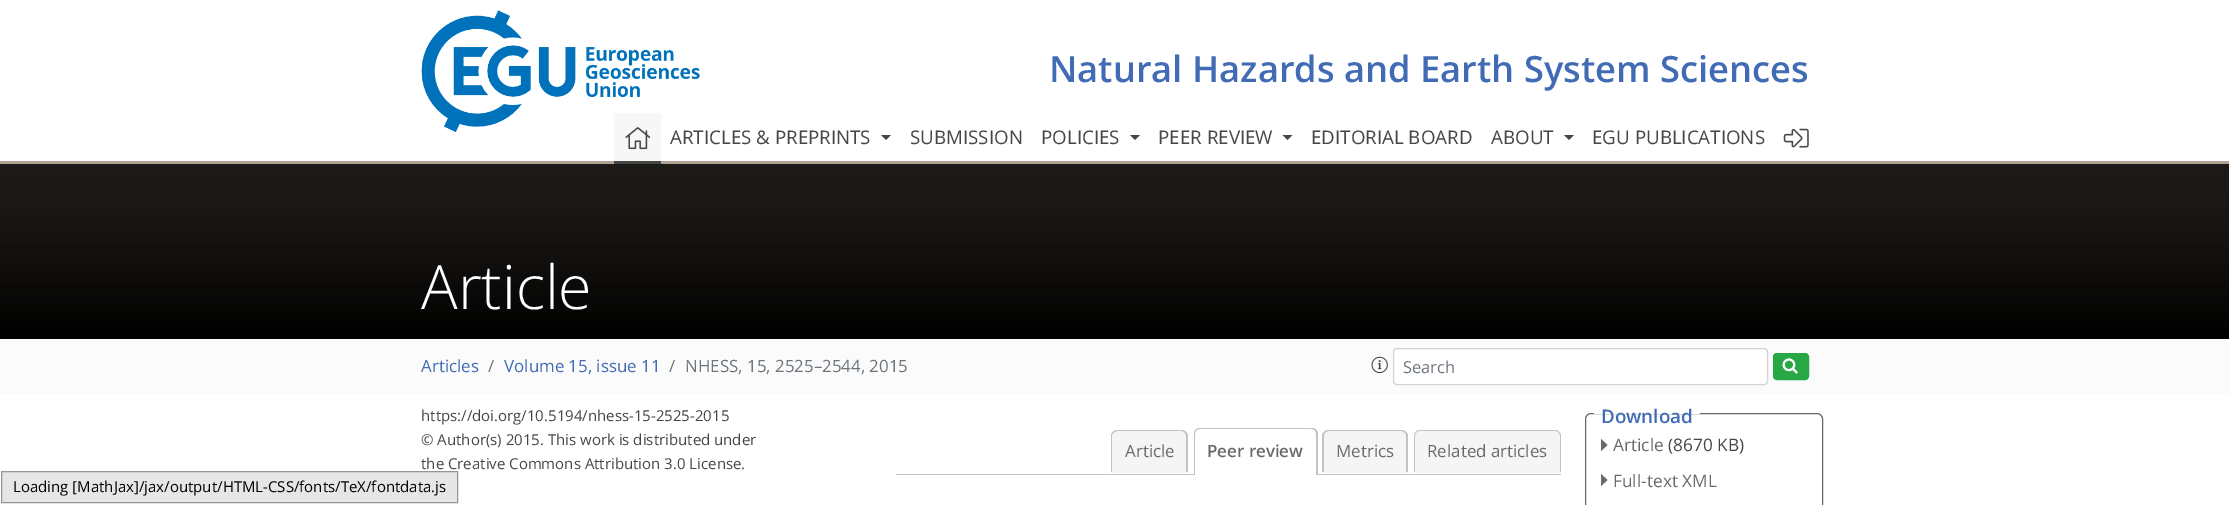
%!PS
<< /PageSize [2229 505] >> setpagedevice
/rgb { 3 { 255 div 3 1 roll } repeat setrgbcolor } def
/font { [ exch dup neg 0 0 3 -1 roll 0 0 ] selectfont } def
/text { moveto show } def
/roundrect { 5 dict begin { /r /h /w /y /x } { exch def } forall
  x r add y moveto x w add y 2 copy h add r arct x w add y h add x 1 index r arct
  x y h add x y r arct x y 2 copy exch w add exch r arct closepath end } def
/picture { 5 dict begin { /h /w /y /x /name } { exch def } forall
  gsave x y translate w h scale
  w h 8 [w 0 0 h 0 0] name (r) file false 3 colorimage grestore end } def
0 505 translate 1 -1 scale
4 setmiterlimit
255 255 255 rgb
0 0 2229 505 rectfill
(img_01.rgb) 421 10 279 122 picture
176 163 147 rgb
0 161 2229 3 rectfill
247 247 247 rgb
614 113 47 48 rectfill
70 70 70 rgb
614 161 47 3 rectfill
(img_02.rgb) 625 127 26 23 picture
881 135 moveto 10 0 rlineto -5 5 rlineto closepath fill
1130 135 moveto 10 0 rlineto -5 5 rlineto closepath fill
1282.5 135 moveto 10 0 rlineto -5 5 rlineto closepath fill
1564 135 moveto 10 0 rlineto -5 5 rlineto closepath fill
(img_03.rgb) 1783 128 26 20 picture
gsave 0 164 moveto 2229 0 rlineto 0 175 rlineto -2229 0 rlineto closepath clip newpath
<< /ShadingType 2 /ColorSpace /DeviceRGB /Coords [1115 339 1115 164] /Extend [true true] /Function << /FunctionType 3 /Domain [0 1] /Functions [<< /FunctionType 2 /Domain [0 1] /C0 [0 0 0] /C1 [0.027 0.027 0.024] /N 1 >> << /FunctionType 2 /Domain [0 1] /C0 [0.027 0.027 0.024] /C1 [0.051 0.047 0.043] /N 1 >> << /FunctionType 2 /Domain [0 1] /C0 [0.051 0.047 0.043] /C1 [0.067 0.063 0.055] /N 1 >> << /FunctionType 2 /Domain [0 1] /C0 [0.067 0.063 0.055] /C1 [0.078 0.075 0.067] /N 1 >> << /FunctionType 2 /Domain [0 1] /C0 [0.078 0.075 0.067] /C1 [0.09 0.082 0.075] /N 1 >> << /FunctionType 2 /Domain [0 1] /C0 [0.09 0.082 0.075] /C1 [0.098 0.09 0.078] /N 1 >> << /FunctionType 2 /Domain [0 1] /C0 [0.098 0.09 0.078] /C1 [0.102 0.094 0.082] /N 1 >> << /FunctionType 2 /Domain [0 1] /C0 [0.102 0.094 0.082] /C1 [0.106 0.098 0.086] /N 1 >> << /FunctionType 2 /Domain [0 1] /C0 [0.106 0.098 0.086] /C1 [0.106 0.098 0.09] /N 1 >> << /FunctionType 2 /Domain [0 1] /C0 [0.106 0.098 0.09] /C1 [0.11 0.102 0.09] /N 1 >> << /FunctionType 2 /Domain [0 1] /C0 [0.11 0.102 0.09] /C1 [0.11 0.102 0.09] /N 1 >>] /Bounds [0.19 0.34 0.47 0.56 0.65 0.73 0.8 0.86 0.91 0.95] /Encode [0 1 0 1 0 1 0 1 0 1 0 1 0 1 0 1 0 1 0 1 0 1] >> >> shfill grestore
251 251 251 rgb
0 339 2229 55 rectfill
(img_04.rgb) 1371 356 17 18 picture
255 255 255 rgb
1394 349 372 35 2.5 roundrect fill
206 212 218 rgb
1393.5 348.5 374 36 3.5 roundrect stroke
40 167 69 rgb
1773.5 353.5 35 26 3.5 roundrect gsave fill grestore
stroke
(img_05.rgb) 1782 358 16 16 picture
230 230 230 rgb
1.5 471.5 moveto 456 0 rlineto 0 31 rlineto -456 0 rlineto closepath gsave fill grestore
149 149 149 rgb
stroke
195 195 195 rgb
896 474 665 1 rectfill
245 245 245 rgb
1117 430 moveto 65 0 rlineto 3.5 0 6 2.5 6 6 rcurveto 0 37 rlineto -77 0 rlineto 0 -37 rlineto 0 -3.5 2.5 -6 6 -6 rcurveto closepath fill
195 195 195 rgb
1118 430 moveto 63 0 rlineto 4 0 7 3 7 6 rcurveto 0 36 rlineto -77 0 rlineto 0 -36 rlineto 0 -3 3 -6 7 -6 rcurveto closepath 1118 431 moveto 63 0 rlineto 3 0 5 2 5 5 rcurveto 0 36 rlineto -74 0 rlineto 0 -36 rlineto 0 -3 3 -5 6 -5 rcurveto closepath eofill
255 255 255 rgb
1200 428 moveto 112 0 rlineto 3.5 0 6 2.5 6 6 rcurveto 0 41 rlineto -124 0 rlineto 0 -41 rlineto 0 -3.5 2.5 -6 6 -6 rcurveto closepath fill
195 195 195 rgb
1200 428 moveto 111 0 rlineto 4 0 7 2 7 6 rcurveto 0 41 rlineto -124 0 rlineto 0 -41 rlineto 0 -4 3 -6 6 -6 rcurveto closepath 1200 429 moveto 111 0 rlineto 3 0 5 2 5 5 rcurveto 0 41 rlineto -121 0 rlineto 0 -41 rlineto 0 -3 2 -5 5 -5 rcurveto closepath eofill
245 245 245 rgb
1329 430 moveto 73 0 rlineto 3.5 0 6 2.5 6 6 rcurveto 0 37 rlineto -85 0 rlineto 0 -37 rlineto 0 -3.5 2.5 -6 6 -6 rcurveto closepath fill
195 195 195 rgb
1329 430 moveto 72 0 rlineto 4 0 7 3 7 6 rcurveto 0 36 rlineto -86 0 rlineto 0 -36 rlineto 0 -3 3 -6 7 -6 rcurveto closepath 1329 431 moveto 72 0 rlineto 3 0 5 2 5 5 rcurveto 0 36 rlineto -82 0 rlineto 0 -36 rlineto 0 -3 2 -5 5 -5 rcurveto closepath eofill
245 245 245 rgb
1420 430 moveto 135 0 rlineto 3.5 0 6 2.5 6 6 rcurveto 0 37 rlineto -147 0 rlineto 0 -37 rlineto 0 -3.5 2.5 -6 6 -6 rcurveto closepath fill
195 195 195 rgb
1420 430 moveto 135 0 rlineto 3 0 6 3 6 6 rcurveto 0 36 rlineto -147 0 rlineto 0 -36 rlineto 0 -3 3 -6 6 -6 rcurveto closepath 1420 431 moveto 135 0 rlineto 3 0 5 2 5 5 rcurveto 0 36 rlineto -145 0 rlineto 0 -36 rlineto 0 -3 2 -5 5 -5 rcurveto closepath eofill
106 106 106 rgb
1585.5 413.5 237 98 5.5 roundrect stroke
255 255 255 rgb
1594 413 106 1 rectfill
106 106 106 rgb
1601 451 moveto 0 -12 rlineto 6.5 6 rlineto closepath 1601 486 moveto 0 -12 rlineto 6.5 6 rlineto closepath fill
/OpenSans-SemiBold 36.25 font
65 107 180 rgb
(Natural Hazards and Earth System Sciences) 1049 82 text
/OpenSans-Regular 18.75 font
70 70 70 rgb
(ARTICLES & PREPRINTS) 670 144 text
(SUBMISSION) 910 144 text
(POLICIES) 1041 144 text
(PEER REVIEW) 1158 144 text
(EDITORIAL BOARD) 1311 144 text
(ABOUT) 1491 144 text
(EGU PUBLICATIONS) 1592 144 text
/OpenSans-Light 61 font
255 255 255 rgb
(Article) 421 309 text
/OpenSans-Regular 16.9 font
65 107 180 rgb
(Articles) 421 372 text
108 117 125 rgb
(/) 488 372 text
65 107 180 rgb
(Volume 15, issue 11) 504 372 text
108 117 125 rgb
(/) 669 372 text
(NHESS, 15, 2525–2544, 2015) 685 372 text
/OpenSans-Regular 16.5 font
(Search) 1403 373 text
/OpenSans-Regular 15 font
0 0 0 rgb
(Loading [MathJax]/jax/output/HTML-CSS/fonts/TeX/fontdata.js) 13 492 text
70 70 70 rgb
(https://doi.org/10.5194/nhess-15-2525-2015) 421 421 text
(© Author\(s\) 2015. This work is distributed under) 421 445 text
(the Creative Commons Attribution 3.0 License.) 421 469 text
/OpenSans-Regular 16.9 font
106 106 106 rgb
(Article) 1125 457 text
/OpenSans-SemiBold 16.9 font
(Peer review) 1207 457 text
/OpenSans-Regular 16.9 font
(Metrics) 1336 457 text
(Related articles) 1427 457 text
/OpenSans-SemiBold 18.75 font
65 107 180 rgb
(Download) 1601 423 text
/OpenSans-Regular 17.25 font
106 106 106 rgb
(Article) 1613 451 text
70 70 70 rgb
(\(8670 KB\)) 1668 451 text
106 106 106 rgb
(Full-text XML) 1613 487 text
showpage
